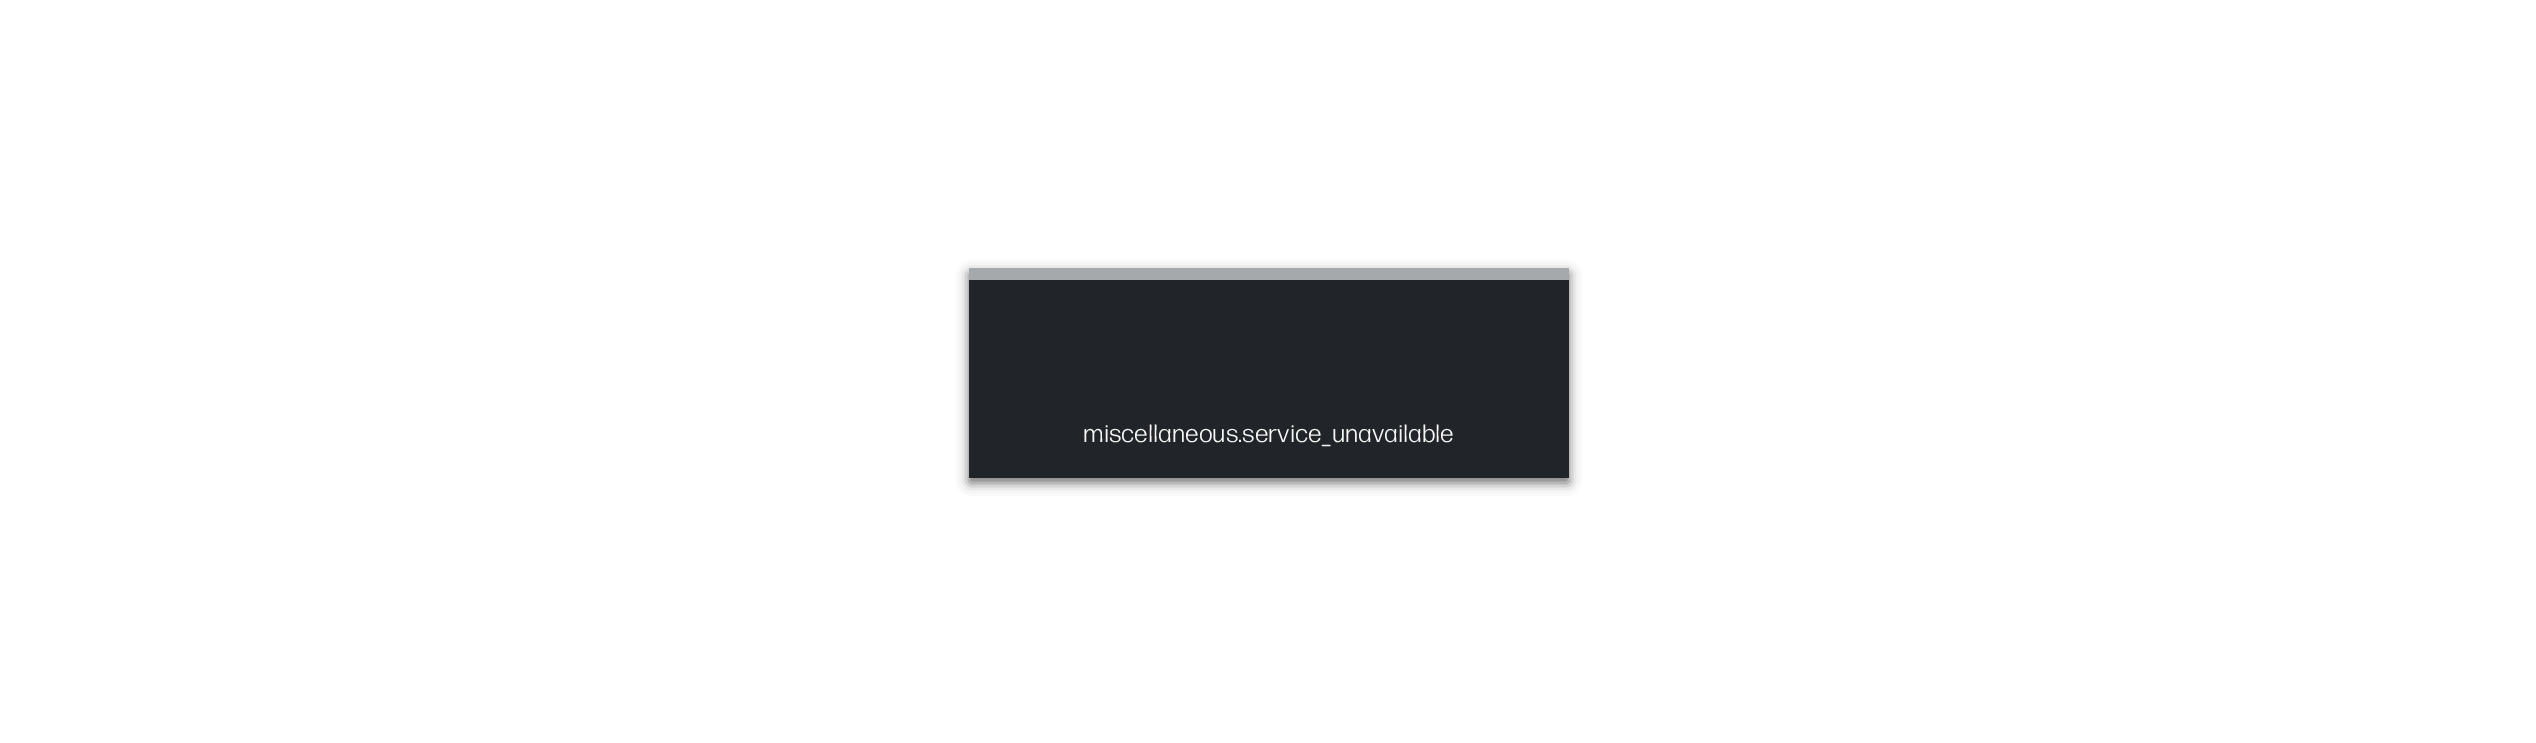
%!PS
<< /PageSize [2536 743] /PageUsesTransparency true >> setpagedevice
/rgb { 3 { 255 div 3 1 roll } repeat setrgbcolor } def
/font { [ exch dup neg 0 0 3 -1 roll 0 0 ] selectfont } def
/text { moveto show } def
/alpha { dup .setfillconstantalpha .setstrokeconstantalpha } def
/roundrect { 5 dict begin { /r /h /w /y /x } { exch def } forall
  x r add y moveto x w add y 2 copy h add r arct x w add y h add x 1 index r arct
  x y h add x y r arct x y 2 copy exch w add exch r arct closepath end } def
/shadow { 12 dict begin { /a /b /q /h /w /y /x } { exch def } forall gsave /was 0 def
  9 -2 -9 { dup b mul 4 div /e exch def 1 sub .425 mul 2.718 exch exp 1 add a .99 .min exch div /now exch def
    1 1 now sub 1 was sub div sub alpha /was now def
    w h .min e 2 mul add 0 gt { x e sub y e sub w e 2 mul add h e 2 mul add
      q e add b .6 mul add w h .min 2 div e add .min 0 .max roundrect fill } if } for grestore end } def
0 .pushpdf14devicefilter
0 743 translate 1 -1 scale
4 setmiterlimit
255 255 255 rgb
0 0 2536 743 rectfill
111 111 111 rgb
969 273 600 210 0 6 1 shadow
33 37 41 rgb
969 280 600 198 rectfill
166 169 172 rgb
969 268 600 12 rectfill
/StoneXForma-Regular 25 font
245 245 245 rgb
(miscellaneous.service_unavailable) 1083 442 text
.poppdf14devicefilter showpage
